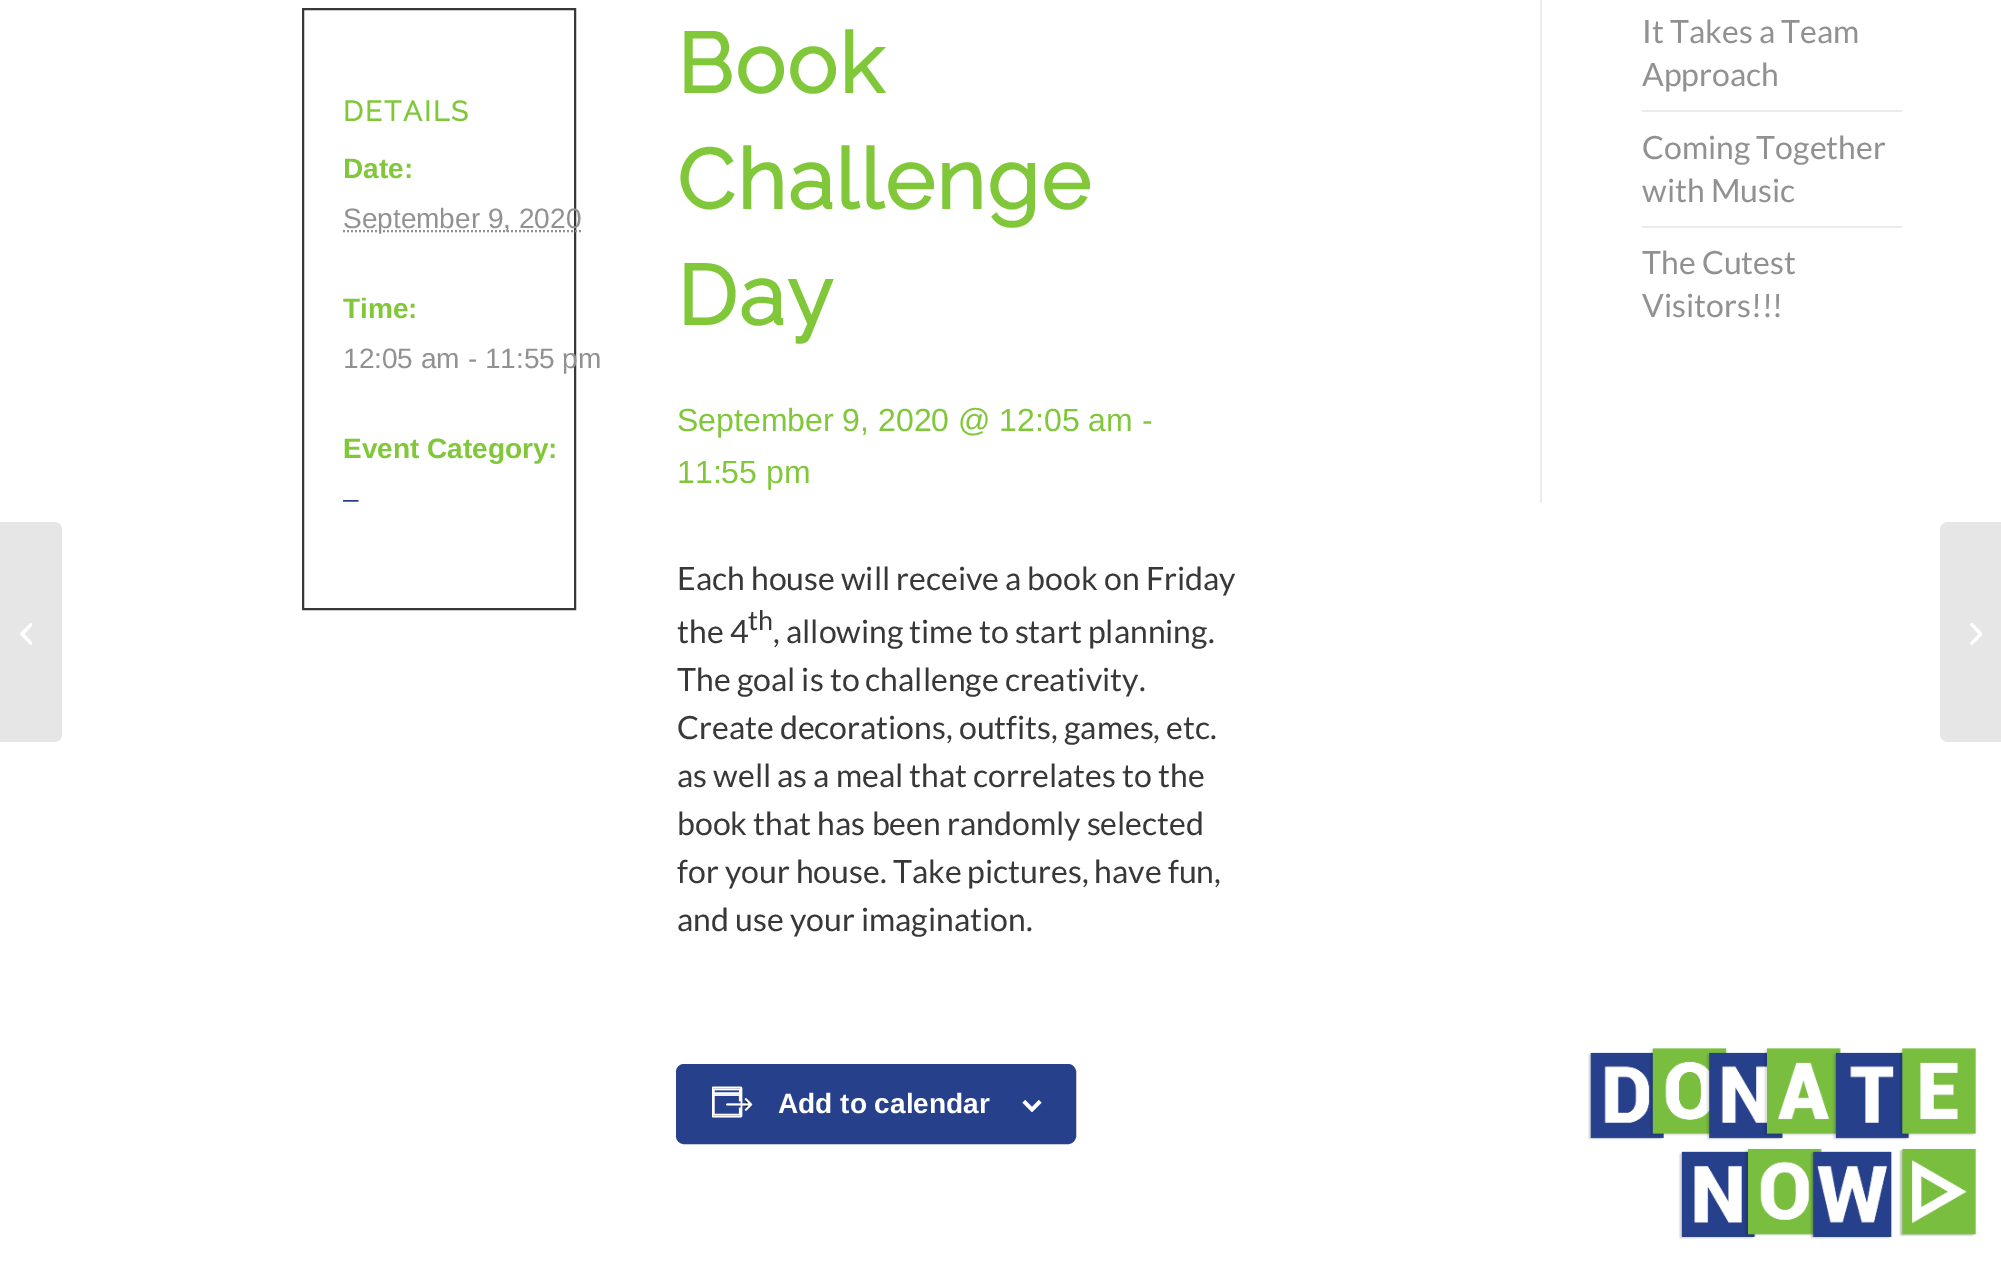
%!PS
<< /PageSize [2001 1264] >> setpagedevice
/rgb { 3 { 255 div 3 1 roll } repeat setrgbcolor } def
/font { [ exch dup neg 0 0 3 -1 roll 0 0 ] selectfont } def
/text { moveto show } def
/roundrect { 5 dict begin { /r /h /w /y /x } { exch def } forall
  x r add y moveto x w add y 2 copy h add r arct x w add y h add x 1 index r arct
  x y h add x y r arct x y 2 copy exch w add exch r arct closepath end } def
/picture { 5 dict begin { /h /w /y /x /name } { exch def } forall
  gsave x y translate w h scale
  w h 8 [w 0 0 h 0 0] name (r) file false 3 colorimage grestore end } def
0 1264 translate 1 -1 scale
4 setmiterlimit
255 255 255 rgb
0 0 2001 1264 rectfill
230 230 230 rgb
0 522 moveto 54 0 rlineto 4.5 0 8 3.5 8 8 rcurveto 0 204 rlineto 0 4.5 -3.5 8 -8 8 rcurveto -54 0 rlineto closepath fill
(img_01.rgb) 20 623 12 22 picture
56 56 56 rgb
2 setlinewidth
303 9 272 600 rectstroke
145 145 145 rgb
[2 2] 0 setdash
343 231 moveto 238.5 0 rlineto stroke
39 64 139 rgb
677 1065 398 78 7 roundrect gsave fill grestore
[] 0 setdash
stroke
(img_02.rgb) 712 1086 41 32 picture
(img_03.rgb) 1022 1100 20 12 picture
235 235 235 rgb
1540 0 2 502 rectfill
1642 110 260 2 rectfill
1642 226 260 2 rectfill
(img_04.rgb) 1588 1048 388 191 picture
230 230 230 rgb
1948 522 moveto 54 0 rlineto 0 220 rlineto -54 0 rlineto -4.5 0 -8 -3.5 -8 -8 rcurveto 0 -204 rlineto 0 -4.5 3.5 -8 8 -8 rcurveto closepath fill
(img_05.rgb) 1970 623 12 22 picture
/Raleway-Bold 28 font
128 199 57 rgb
343 121 moveto 2 0 (DETAILS) ashow
/LiberationSans-Bold 28 font
(Date:) 343 178 text
/LiberationSans-Regular 28 font
145 145 145 rgb
(September 9, 2020) 343 228 text
/LiberationSans-Bold 28 font
128 199 57 rgb
(Time:) 343 318 text
/LiberationSans-Regular 28 font
145 145 145 rgb
(12:05 am - 11:55 pm) 343 368 text
/LiberationSans-Bold 28 font
128 199 57 rgb
(Event Category:) 343 458 text
/LiberationSans-Regular 28 font
39 64 139 rgb
(–) 343 508 text
/Raleway-Bold 84 font
128 199 57 rgb
677 93 moveto 2 0 (Book) ashow
677 209 moveto 2 0 (Challenge) ashow
677 325 moveto 2 0 (Day) ashow
/LiberationSans-Regular 32 font
(September 9, 2020 @ 12:05 am -) 677 431 text
(11:55 pm) 677 483 text
/Lato-Regular 32 font
56 56 56 rgb
(Each house will receive a book on Friday) 677 590 text
(the 4) 677 643 text
/Lato-Regular 27 font
(th) 748 630 text
/Lato-Regular 32 font
(, allowing time to start planning.) 773 643 text
(The goal is to challenge creativity.) 677 691 text
(Create decorations, outfits, games, etc.) 677 739 text
(as well as a meal that correlates to the) 677 787 text
(book that has been randomly selected) 677 835 text
(for your house. Take pictures, have fun,) 677 883 text
(and use your imagination.) 677 931 text
/LiberationSans-Bold 28 font
255 255 255 rgb
(Add to calendar) 778 1113 text
/Lato-Regular 32 font
145 145 145 rgb
(It Takes a Team) 1642 43 text
(Approach) 1642 86 text
(Coming Together) 1642 159 text
(with Music) 1642 202 text
(The Cutest) 1642 274 text
(Visitors!!!) 1642 317 text
showpage
